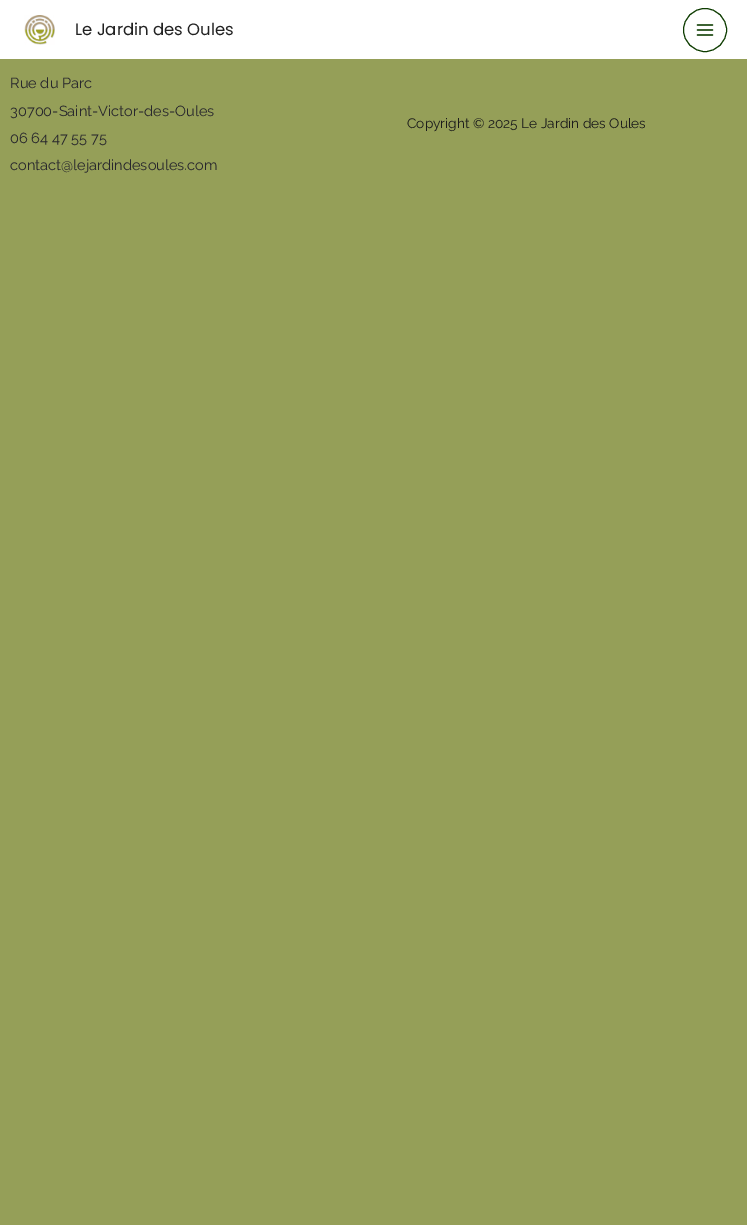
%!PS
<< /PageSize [747 1225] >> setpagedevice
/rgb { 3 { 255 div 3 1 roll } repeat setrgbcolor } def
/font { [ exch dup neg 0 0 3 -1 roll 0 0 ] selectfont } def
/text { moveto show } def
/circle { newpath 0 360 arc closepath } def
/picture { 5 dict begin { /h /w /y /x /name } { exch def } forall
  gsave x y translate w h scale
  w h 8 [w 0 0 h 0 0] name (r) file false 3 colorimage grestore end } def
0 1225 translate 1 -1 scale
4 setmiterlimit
149 159 88 rgb
0 0 747 1225 rectfill
255 255 255 rgb
0 0 747 59 rectfill
(img_01.rgb) 24 15 31 30 picture
13 60 0 rgb
705 30 21.5 circle stroke
(img_02.rgb) 696 24 18 12 picture
/Poppins-Regular 16.5 font
34 34 34 rgb
(Le Jardin des Oules) 75 35 text
/Raleway-Thin 14.6 font
40 39 45 rgb
(Rue du Parc) 10 88 text
(30700-Saint-Victor-des-Oules) 10 116 text
(06 64 47 55 75) 10 143 text
(contact@lejardindesoules.com) 10 170 text
/Raleway-Thin 13.7 font
27 27 27 rgb
(Copyright © 2025 Le Jardin des Oules) 407 128 text
showpage
